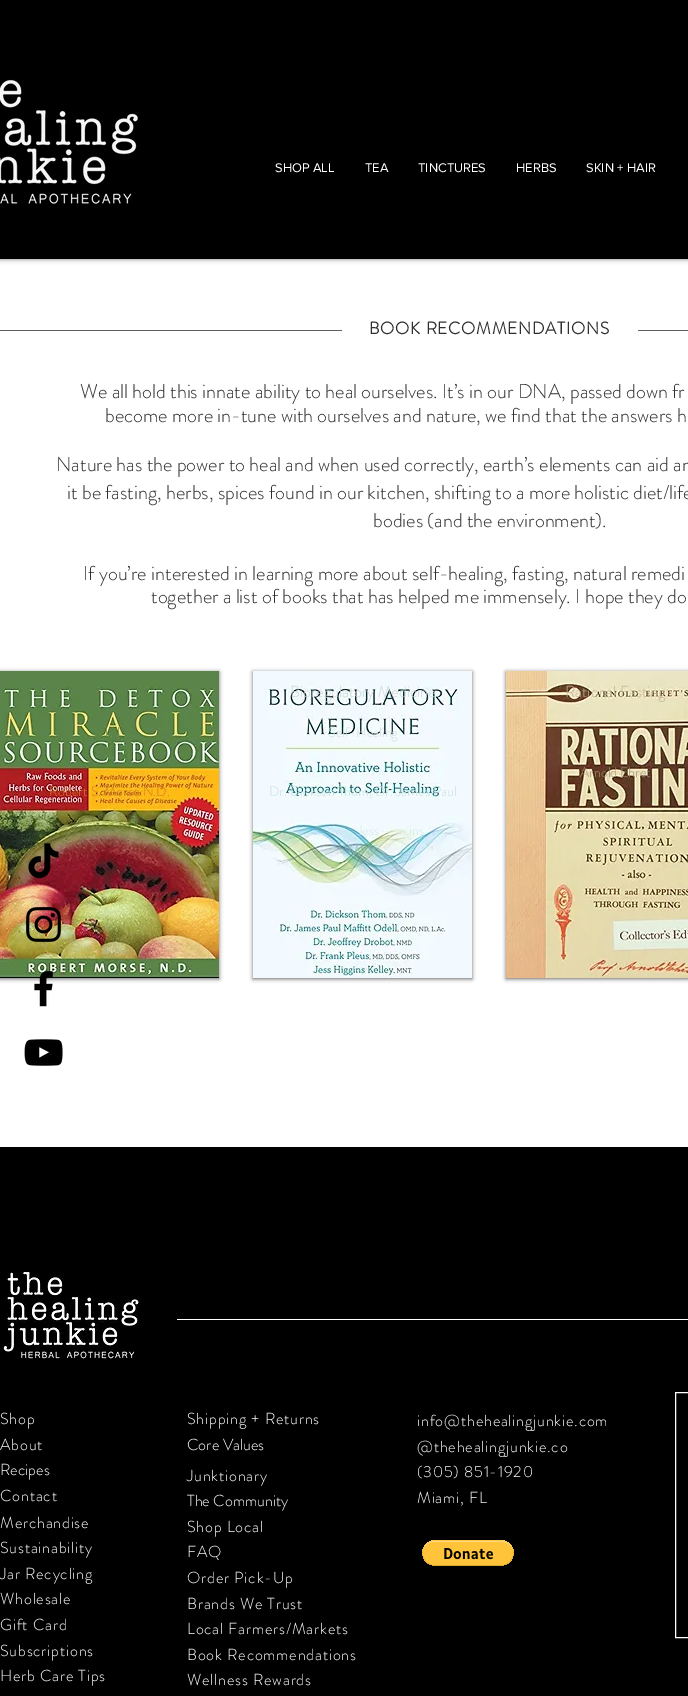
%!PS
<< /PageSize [688 1696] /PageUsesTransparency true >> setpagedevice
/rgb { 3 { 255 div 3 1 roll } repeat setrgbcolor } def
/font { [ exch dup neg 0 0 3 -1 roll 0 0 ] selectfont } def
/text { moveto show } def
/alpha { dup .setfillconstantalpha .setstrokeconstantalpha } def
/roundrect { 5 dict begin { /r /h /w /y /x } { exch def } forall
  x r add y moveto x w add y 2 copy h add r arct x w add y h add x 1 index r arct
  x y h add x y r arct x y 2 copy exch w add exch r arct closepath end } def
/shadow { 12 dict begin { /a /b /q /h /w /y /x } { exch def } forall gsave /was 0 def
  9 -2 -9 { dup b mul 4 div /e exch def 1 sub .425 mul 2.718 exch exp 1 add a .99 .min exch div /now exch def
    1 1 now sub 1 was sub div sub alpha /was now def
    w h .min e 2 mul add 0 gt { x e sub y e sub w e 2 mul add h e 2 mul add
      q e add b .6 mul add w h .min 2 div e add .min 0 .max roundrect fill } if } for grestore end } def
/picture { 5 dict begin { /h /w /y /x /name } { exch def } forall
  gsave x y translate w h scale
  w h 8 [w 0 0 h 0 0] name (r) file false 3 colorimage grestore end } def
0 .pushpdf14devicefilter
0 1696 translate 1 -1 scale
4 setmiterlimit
255 255 255 rgb
0 0 688 1696 rectfill
0 0 0 rgb
0 0 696 259 0 2.5 0.5 shadow
0 0 688 259 rectfill
(img_01.rgb) 0 79 138 125 picture
92 95 94 rgb
0 330 342 1 rectfill
638 330 50 1 rectfill
0 0 0 rgb
0 672 219 307 0 2 0.6 shadow
(img_02.rgb) 0 671 219 307 picture
253 672 219 307 0 2 0.6 shadow
(img_03.rgb) 253 671 219 307 picture
506 672 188 307 0 2 0.6 shadow
(img_04.rgb) 506 671 182 307 picture
(img_05.rgb) 28 843 31 36 picture
(img_06.rgb) 26 907 35 35 picture
(img_07.rgb) 34 971 19 36 picture
(img_08.rgb) 24 1039 39 27 picture
0 1147 688 549 rectfill
(img_09.rgb) 2 1271 139 88 picture
255 255 255 rgb
177 1319 511 1 rectfill
675.5 1392.5 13 245 rectstroke
(img_10.rgb) 422 1540 92 26 picture
/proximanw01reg-Regular 13 font
(SHOP ALL) 275 172 text
(TEA) 365 172 text
(TINCTURES) 418 172 text
(HERBS) 516 172 text
(SKIN + HAIR) 586 172 text
/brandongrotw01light-Bold 17 font
46 48 47 rgb
369 334 moveto 0.8 0 (BOOK RECOMMENDATIONS) ashow
/brandongrotw01light-Light 20 font
(We all hold this innate ability to heal ourselves. It’s in our DNA, passed down fr) 80 398 text
(become more in-tune with ourselves and nature, we find that the answers h) 105 422 text
(Nature has the power to heal and when used correctly, earth’s elements can aid an) 56 471 text
(it be fasting, herbs, spices found in our kitchen, shifting to a more holistic diet/life) 67 499 text
(bodies \(and the environment\).) 373 527 text
(If you’re interested in learning more about self-healing, fasting, natural remedi) 83 580 text
(together a list of books that has helped me immensely. I hope they do) 151 603 text
/brandongrotw01light-Light 14 font
112 145 78 rgb
(l) 105 737 text
(l) 117 737 text
212 122 34 rgb
(Robert S. Morse N.D.) 49 796 text
/brandongrotw01light-Light 16 font
203 213 215 rgb
(Bioregulatory Medicine) 290 697 text
/brandongrotw01light-Light 14 font
210 220 222 rgb
(Self-Healing) 328 737 text
200 223 225 rgb
(Dr. Dickson Thom, Dr. James Paul) 269 796 text
210 234 237 rgb
(.) 280 835 text
(Jess) 357 835 text
(ins) 409 835 text
151 194 182 rgb
(MNT) 348 855 text
/brandongrotw01light-Light 16 font
194 181 148 rgb
(Rational Fasting) 565 697 text
/brandongrotw01light-Light 14 font
166 145 115 rgb
(Arnold Ehret) 580 777 text
/brandongrotw01light-Light 16 font
255 255 255 rgb
0 1424 moveto 0.8 0 (Shop) ashow
0 1450 moveto 0.8 0 (About) ashow
(Recipes) 0 1475 text
0 1501 moveto 0.8 0 (Contact) ashow
187 1424 moveto 0.8 0 (Shipping + Returns) ashow
(Core Values) 187 1450 text
417 1426 moveto 0.8 0 (info@thehealingjunkie.com) ashow
417 1452 moveto 0.8 0 (@thehealingjunkie.co) ashow
417 1477 moveto 0.8 0 (\(305\) 851-1920) ashow
417 1503 moveto 0.8 0 (Miami, FL) ashow
0 1528 moveto 0.8 0 (Merchandise) ashow
0 1553 moveto 0.8 0 (Sustainability) ashow
0 1579 moveto 0.8 0 (Jar Recycling) ashow
0 1604 moveto 0.8 0 (Wholesale) ashow
0 1630 moveto 0.8 0 (Gift Card) ashow
0 1656 moveto 0.8 0 (Subscriptions) ashow
0 1681 moveto 0.8 0 (Herb Care Tips) ashow
187 1481 moveto 0.8 0 (Junktionary) ashow
(The Community) 187 1506 text
187 1532 moveto 0.8 0 (Shop Local) ashow
187 1557 moveto 0.8 0 (FAQ) ashow
187 1583 moveto 0.8 0 (Order Pick-Up) ashow
187 1609 moveto 0.8 0 (Brands We Trust) ashow
187 1634 moveto 0.8 0 (Local Farmers/Markets) ashow
187 1660 moveto 0.8 0 (Book Recommendations) ashow
187 1685 moveto 0.8 0 (Wellness Rewards) ashow
.poppdf14devicefilter showpage
